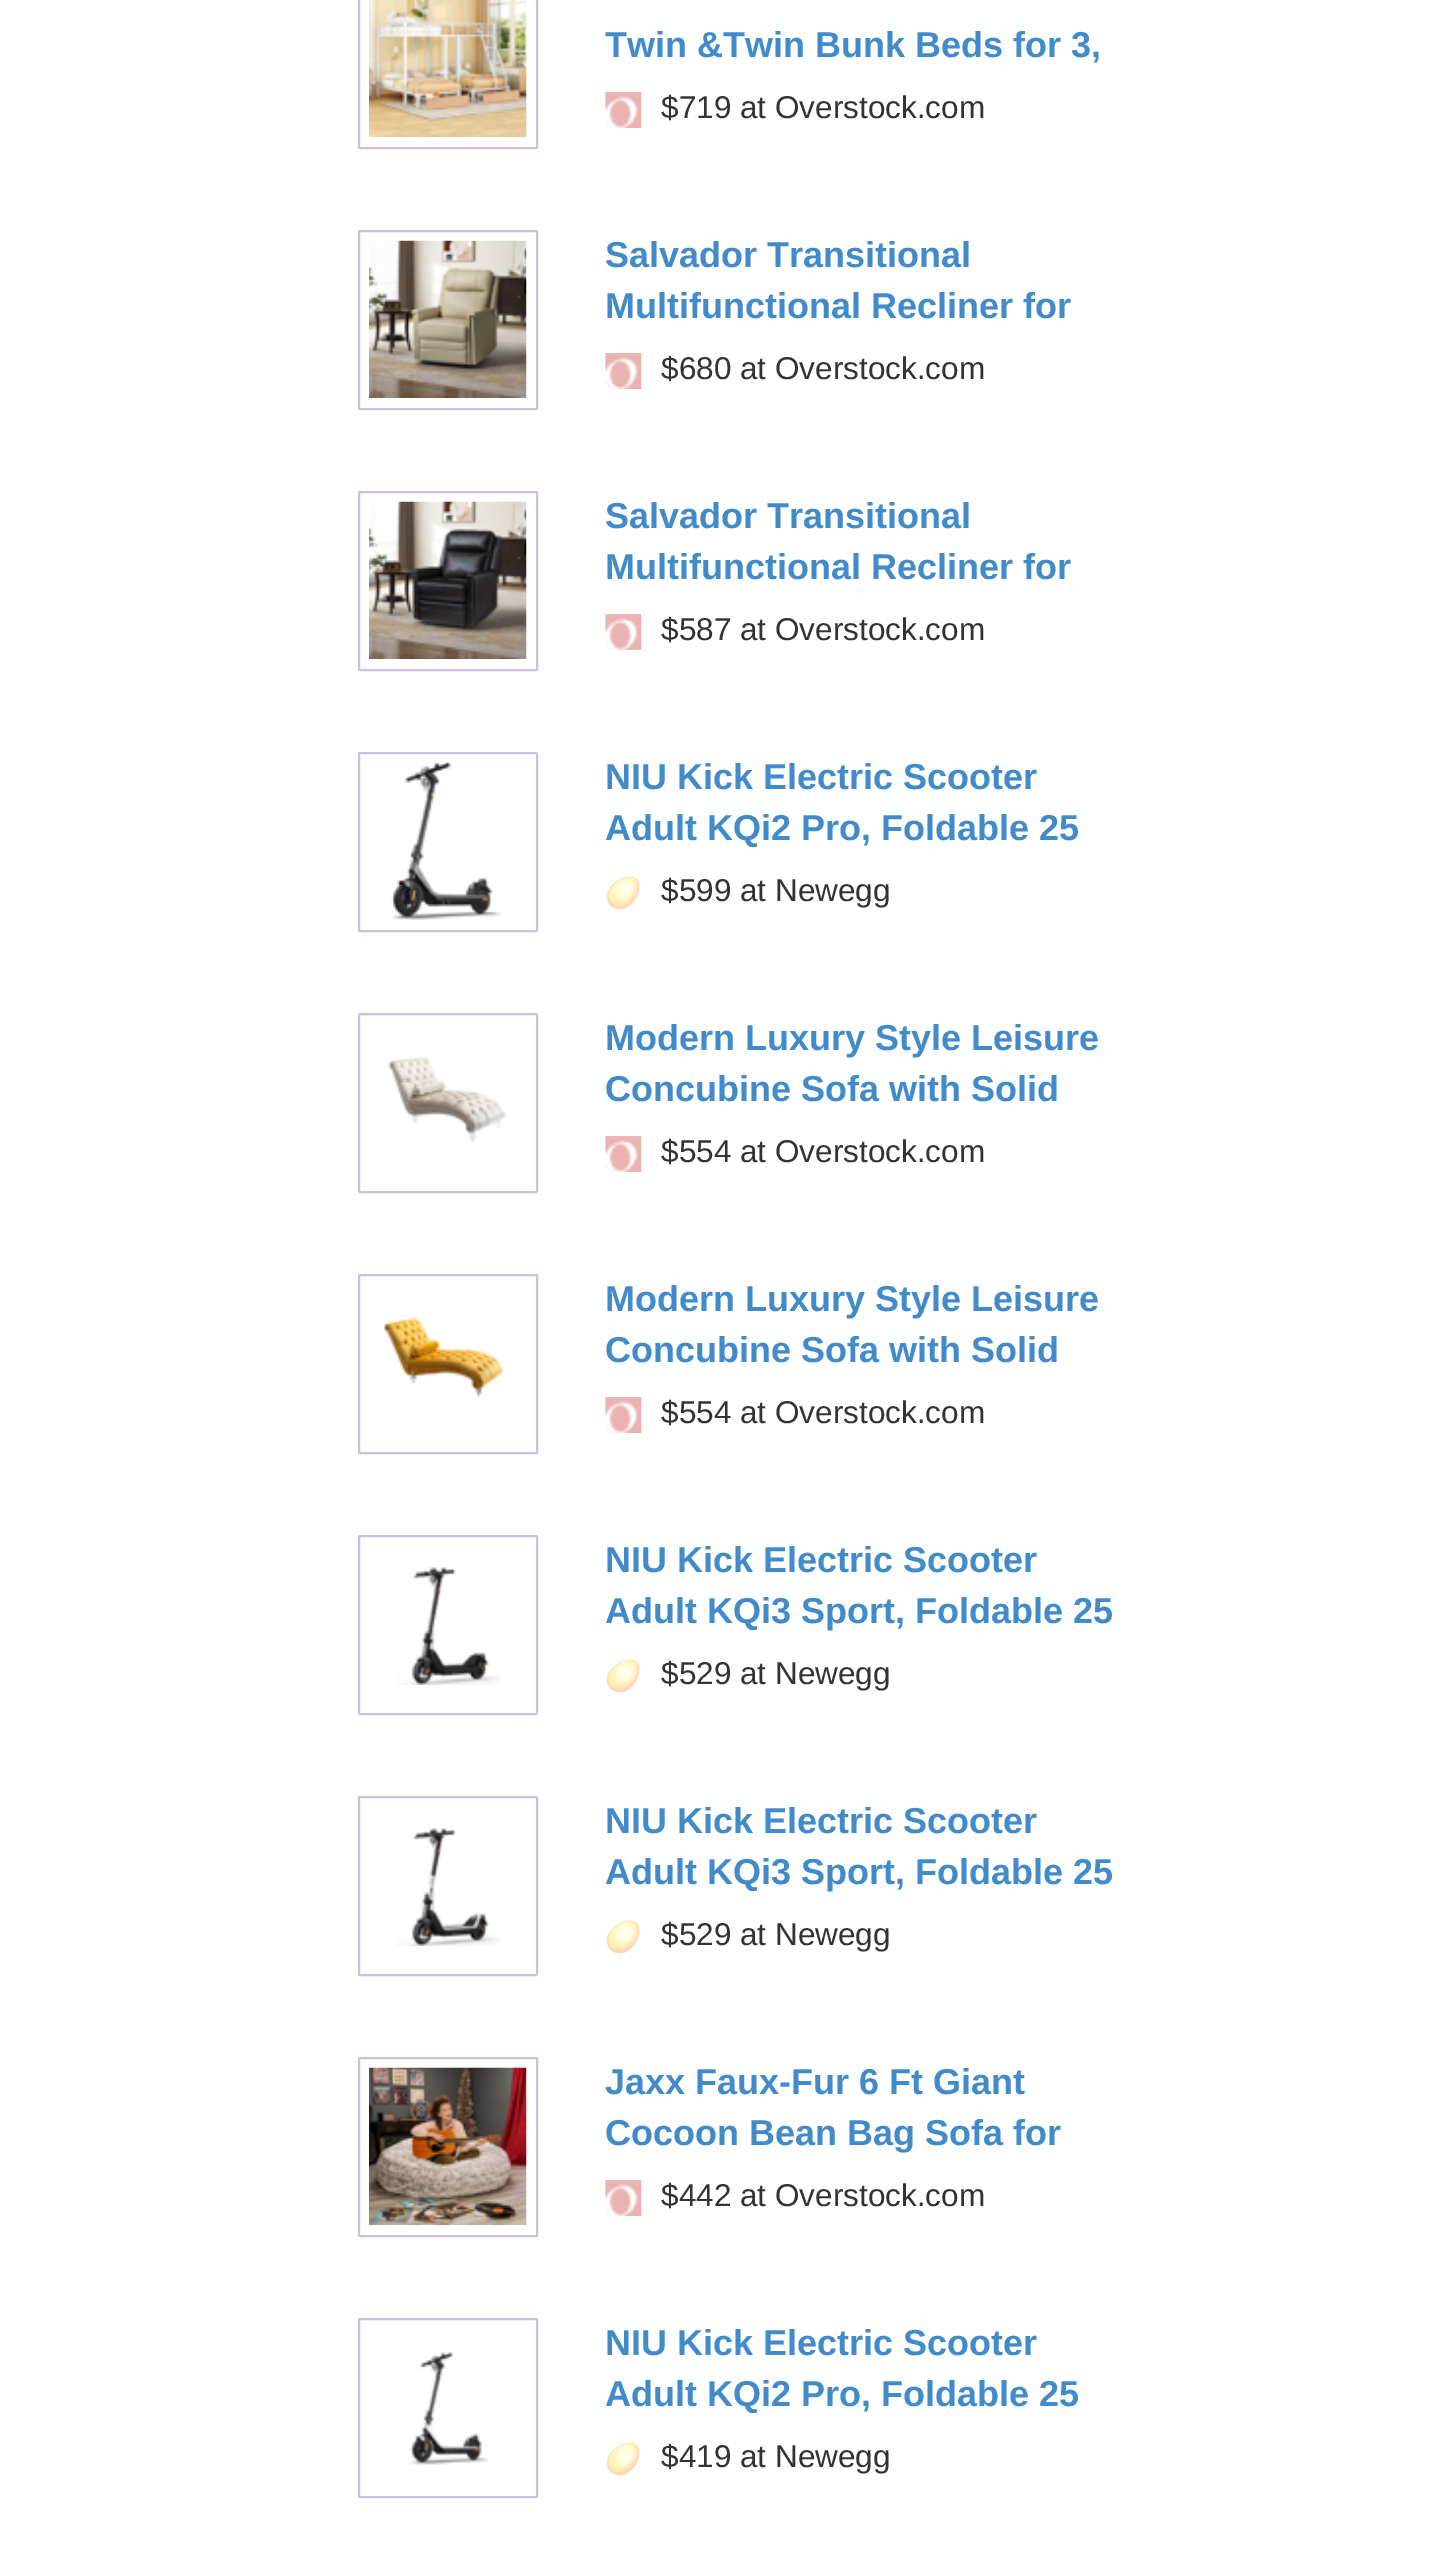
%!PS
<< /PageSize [1429 2571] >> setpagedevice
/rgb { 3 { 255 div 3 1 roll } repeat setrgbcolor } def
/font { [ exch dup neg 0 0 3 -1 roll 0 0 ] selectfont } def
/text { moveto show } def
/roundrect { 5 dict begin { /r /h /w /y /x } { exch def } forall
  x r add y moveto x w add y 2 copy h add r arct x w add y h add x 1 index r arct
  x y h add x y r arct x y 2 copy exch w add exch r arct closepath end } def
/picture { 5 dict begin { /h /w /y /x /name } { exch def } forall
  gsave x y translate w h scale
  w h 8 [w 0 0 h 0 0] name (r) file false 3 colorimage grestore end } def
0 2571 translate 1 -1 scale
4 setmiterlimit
255 255 255 rgb
0 0 1429 2571 rectfill
205 191 227 rgb
2 setlinewidth
359 -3 178 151 1 roundrect stroke
(img_01.rgb) 369 0 158 137 picture
(img_02.rgb) 605 92 37 36 picture
359 231 178 178 1 roundrect stroke
(img_03.rgb) 369 240 158 158 picture
(img_02.rgb) 605 353 37 36 picture
359 492 178 178 1 roundrect stroke
(img_04.rgb) 369 501 158 158 picture
(img_05.rgb) 605 614 37 36 picture
359 753 178 178 1 roundrect stroke
(img_06.rgb) 391 762 111 158 picture
(img_07.rgb) 606 876 34 34 picture
359 1014 178 178 1 roundrect stroke
(img_08.rgb) 388 1056 119 86 picture
(img_05.rgb) 605 1136 37 36 picture
359 1275 178 178 1 roundrect stroke
(img_09.rgb) 382 1317 122 81 picture
(img_05.rgb) 605 1397 37 36 picture
359 1536 178 178 1 roundrect stroke
(img_10.rgb) 396 1567 105 118 picture
(img_07.rgb) 606 1659 34 34 picture
359 1797 178 178 1 roundrect stroke
(img_11.rgb) 396 1828 105 118 picture
(img_07.rgb) 606 1920 34 34 picture
359 2058 178 178 1 roundrect stroke
(img_12.rgb) 369 2067 158 158 picture
(img_05.rgb) 605 2180 37 36 picture
359 2319 178 178 1 roundrect stroke
(img_13.rgb) 408 2352 81 114 picture
(img_07.rgb) 606 2442 34 34 picture
/LiberationSans-Bold 36 font
66 139 202 rgb
(Twin &Twin Bunk Beds for 3,) 605 57 text
/LiberationSans-Regular 31.5 font
51 51 51 rgb
($719 at Overstock.com) 661 118 text
/LiberationSans-Bold 36 font
66 139 202 rgb
(Salvador Transitional) 605 267 text
(Multifunctional Recliner for) 605 318 text
/LiberationSans-Regular 31.5 font
51 51 51 rgb
($680 at Overstock.com) 661 379 text
/LiberationSans-Bold 36 font
66 139 202 rgb
(Salvador Transitional) 605 528 text
(Multifunctional Recliner for) 605 579 text
/LiberationSans-Regular 31.5 font
51 51 51 rgb
($587 at Overstock.com) 661 640 text
/LiberationSans-Bold 36 font
66 139 202 rgb
(NIU Kick Electric Scooter) 605 789 text
(Adult KQi2 Pro, Foldable 25) 605 840 text
/LiberationSans-Regular 31.5 font
51 51 51 rgb
($599 at Newegg) 661 901 text
/LiberationSans-Bold 36 font
66 139 202 rgb
(Modern Luxury Style Leisure) 605 1050 text
(Concubine Sofa with Solid) 605 1101 text
/LiberationSans-Regular 31.5 font
51 51 51 rgb
($554 at Overstock.com) 661 1162 text
/LiberationSans-Bold 36 font
66 139 202 rgb
(Modern Luxury Style Leisure) 605 1311 text
(Concubine Sofa with Solid) 605 1362 text
/LiberationSans-Regular 31.5 font
51 51 51 rgb
($554 at Overstock.com) 661 1423 text
/LiberationSans-Bold 36 font
66 139 202 rgb
(NIU Kick Electric Scooter) 605 1572 text
(Adult KQi3 Sport, Foldable 25) 605 1623 text
/LiberationSans-Regular 31.5 font
51 51 51 rgb
($529 at Newegg) 661 1684 text
/LiberationSans-Bold 36 font
66 139 202 rgb
(NIU Kick Electric Scooter) 605 1833 text
(Adult KQi3 Sport, Foldable 25) 605 1884 text
/LiberationSans-Regular 31.5 font
51 51 51 rgb
($529 at Newegg) 661 1945 text
/LiberationSans-Bold 36 font
66 139 202 rgb
(Jaxx Faux-Fur 6 Ft Giant) 605 2094 text
(Cocoon Bean Bag Sofa for) 605 2145 text
/LiberationSans-Regular 31.5 font
51 51 51 rgb
($442 at Overstock.com) 661 2206 text
/LiberationSans-Bold 36 font
66 139 202 rgb
(NIU Kick Electric Scooter) 605 2355 text
(Adult KQi2 Pro, Foldable 25) 605 2406 text
/LiberationSans-Regular 31.5 font
51 51 51 rgb
($419 at Newegg) 661 2467 text
showpage
